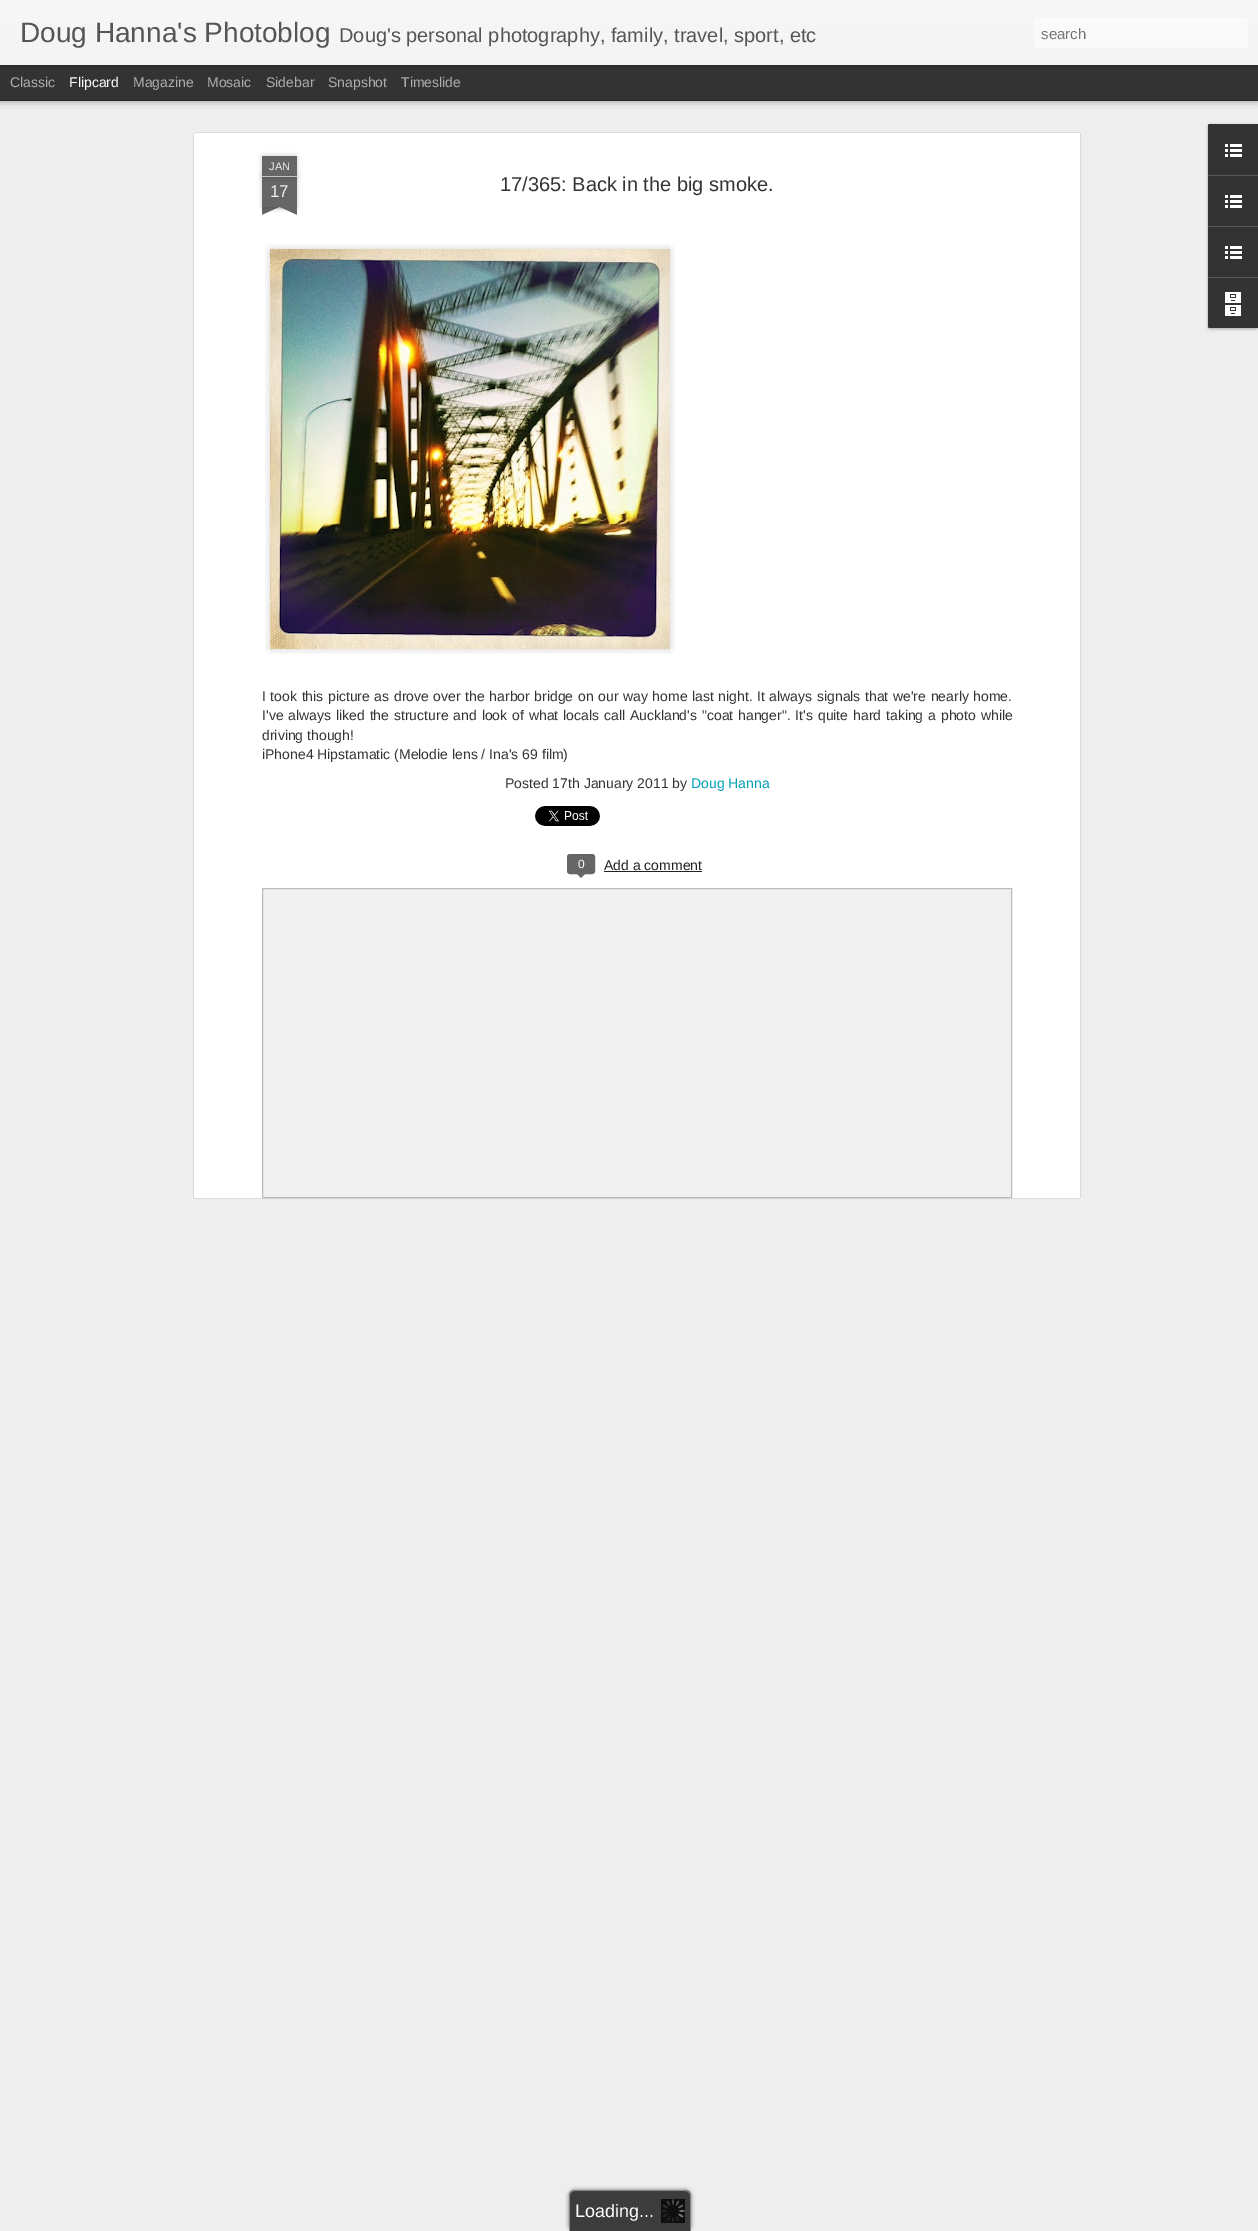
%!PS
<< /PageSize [1258 2231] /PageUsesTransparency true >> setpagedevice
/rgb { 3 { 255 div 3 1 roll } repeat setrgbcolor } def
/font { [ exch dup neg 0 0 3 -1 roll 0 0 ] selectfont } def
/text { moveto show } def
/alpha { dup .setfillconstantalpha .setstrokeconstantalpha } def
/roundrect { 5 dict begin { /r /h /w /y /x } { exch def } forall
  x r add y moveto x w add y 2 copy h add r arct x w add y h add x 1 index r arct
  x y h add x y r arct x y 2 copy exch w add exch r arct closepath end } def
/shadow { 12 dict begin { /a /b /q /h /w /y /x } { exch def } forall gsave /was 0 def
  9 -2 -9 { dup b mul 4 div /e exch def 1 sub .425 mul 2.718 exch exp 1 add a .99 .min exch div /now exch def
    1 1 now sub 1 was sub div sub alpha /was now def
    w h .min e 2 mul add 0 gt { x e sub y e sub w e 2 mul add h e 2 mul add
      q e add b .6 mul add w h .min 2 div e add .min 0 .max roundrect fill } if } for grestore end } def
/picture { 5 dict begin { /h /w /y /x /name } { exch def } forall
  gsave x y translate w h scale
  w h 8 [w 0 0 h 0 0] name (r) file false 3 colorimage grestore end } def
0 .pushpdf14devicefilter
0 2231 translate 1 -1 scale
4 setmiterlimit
51 51 51 rgb
0 0 1258 2231 rectfill
238 238 238 rgb
0 101 1258 2130 rectfill
0 0 0 rgb
0 65 1258 35 0 4 0.5 shadow
51 51 51 rgb
0 65 1258 35 rectfill
0 0 0 rgb
0 0 1258 65 0 2.5 0.3 shadow
gsave 0 0 moveto 1258 0 rlineto 0 65 rlineto -1258 0 rlineto closepath clip newpath
<< /ShadingType 2 /ColorSpace /DeviceRGB /Coords [0 0 0 65] /Extend [true true] /Function << /FunctionType 2 /Domain [0 1] /C0 [0.969 0.969 0.969] /C1 [0.957 0.957 0.957] /N 1 >> >> shfill grestore
250 250 250 rgb
1034 18 214 30 3 roundrect fill
255 255 255 rgb
192 131 890 1069 rectfill
(img_01.rgb) 192 131 890 1069 picture
0 0 0 rgb
262 177 35 30 0 2.5 0.2 shadow
102 102 102 rgb
262 177 35 30 rectfill
0 0 0 rgb
262 156 35 21 1 2.5 0.2 shadow
102 102 102 rgb
263 156 moveto 33 0 rlineto 0.5 0 1 0.5 1 1 rcurveto 0 20 rlineto -35 0 rlineto 0 -20 rlineto 0 -0.5 0.5 -1 1 -1 rcurveto closepath fill
194 194 194 rgb
262 176 35 1 rectfill
gsave
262 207 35 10 rectclip
0 0 0 rgb
253 197 50 10 0 2.5 0.2 shadow
grestore
gsave
262 207 35 10 rectclip
102 102 102 rgb
253 208 moveto 46 -21 rlineto 4 9 rlineto -46 21 rlineto closepath fill
grestore
gsave
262 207 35 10 rectclip
0 0 0 rgb
256 197 50 10 0 2.5 0.2 shadow
grestore
gsave
262 207 35 10 rectclip
102 102 102 rgb
260 187 moveto 46 21 rlineto -4 9 rlineto -46 -21 rlineto closepath fill
grestore
(img_02.rgb) 265 244 410 410 picture
(img_03.rgb) 535 806 65 20 picture
102 102 102 rgb
567.5 854.5 27 19 2.5 roundrect gsave fill grestore
stroke
576 873 moveto 10 0 rlineto -5 5 rlineto closepath fill
34 34 34 rgb
604 871 98 1 rectfill
241 241 241 rgb
262.5 888.5 moveto 749 0 rlineto 0 309 rlineto -749 0 rlineto closepath gsave fill grestore
187 187 187 rgb
stroke
0 0 0 rgb
1208 125 50 204 2 1.5 0.3 shadow
51 51 51 rgb
1210 124 moveto 48 0 rlineto 0 204 rlineto -48 0 rlineto -1 0 -2 -1 -2 -2 rcurveto 0 -200 rlineto 0 -1 1 -2 2 -2 rcurveto closepath fill
1210 124 moveto 48 0 rlineto 0 51 rlineto -50 0 rlineto 0 -49 rlineto 0 -1 1 -2 2 -2 rcurveto closepath fill
(img_04.rgb) 1225 144 17 13 picture
88 88 88 rgb
1208 175 50 1 rectfill
(img_04.rgb) 1225 195 17 13 picture
1208 226 50 1 rectfill
(img_04.rgb) 1225 246 17 13 picture
51 51 51 rgb
1208 277 moveto 50 0 rlineto 0 51 rlineto -48 0 rlineto -1 0 -2 -1 -2 -2 rcurveto closepath fill
88 88 88 rgb
1208 277 50 1 rectfill
(img_05.rgb) 1225 292 16 24 picture
98 98 98 rgb
569 2190 122 41 6 2 1 shadow
60 60 60 rgb
575 2190 moveto 110 0 rlineto 3.5 0 6 2.5 6 6 rcurveto 0 35 rlineto -122 0 rlineto 0 -35 rlineto 0 -3.5 2.5 -6 6 -6 rcurveto closepath fill
136 136 136 rgb
575 2190 moveto 110 0 rlineto 3 0 6 3 6 6 rcurveto 0 35 rlineto -122 0 rlineto 0 -35 rlineto 0 -3 3 -6 6 -6 rcurveto closepath 575 2191 moveto 110 0 rlineto 3 0 5 2 5 5 rcurveto 0 35 rlineto -120 0 rlineto 0 -35 rlineto 0 -3 2 -5 5 -5 rcurveto closepath eofill
(img_06.rgb) 661 2199 24 24 picture
/LiberationSans-Regular 28 font
85 85 85 rgb
(Doug Hanna's Photoblog) 20 42 text
/LiberationSans-Regular 20 font
(Doug's personal photography, family, travel, sport, etc) 339 42 text
/LiberationSans-Regular 15 font
117 117 117 rgb
(search) 1041 39 text
/LiberationSans-Regular 14 font
173 173 173 rgb
(Classic) 10 87 text
255 255 255 rgb
(Flipcard) 69 87 text
173 173 173 rgb
(Magazine) 133 87 text
(Mosaic) 207 87 text
(Sidebar) 266 87 text
(Snapshot) 328 87 text
(Timeslide) 401 87 text
/LiberationSans-Regular 11 font
238 238 238 rgb
(JAN) 269 170 text
/LiberationSans-Regular 17 font
(17) 270 197 text
/LiberationSans-Regular 20 font
51 51 51 rgb
(17/365: Back in the big smoke.) 500 191 text
/LiberationSans-Regular 14 font
262 701 moveto 0.7 0 32 (I took this picture as drove over the harbor bridge on our way home last night. It always signals that we're nearly home.) widthshow
262 720 moveto 1 0 32 (I've always liked the structure and look of what locals call Auckland's "coat hanger". It's quite hard taking a photo while) widthshow
(driving though!) 262 740 text
(iPhone4 Hipstamatic \(Melodie lens / Ina's 69 film\)) 262 759 text
(Posted 17th January 2011 by) 505 788 text
0 158 184 rgb
(Doug Hanna) 691 788 text
/LiberationSans-Regular 12 font
255 255 255 rgb
(0) 578 868 text
/LiberationSans-Regular 14 font
34 34 34 rgb
(Add a comment) 604 870 text
/LiberationSans-Regular 18 font
255 255 255 rgb
(Loading...) 575 2217 text
.poppdf14devicefilter showpage
